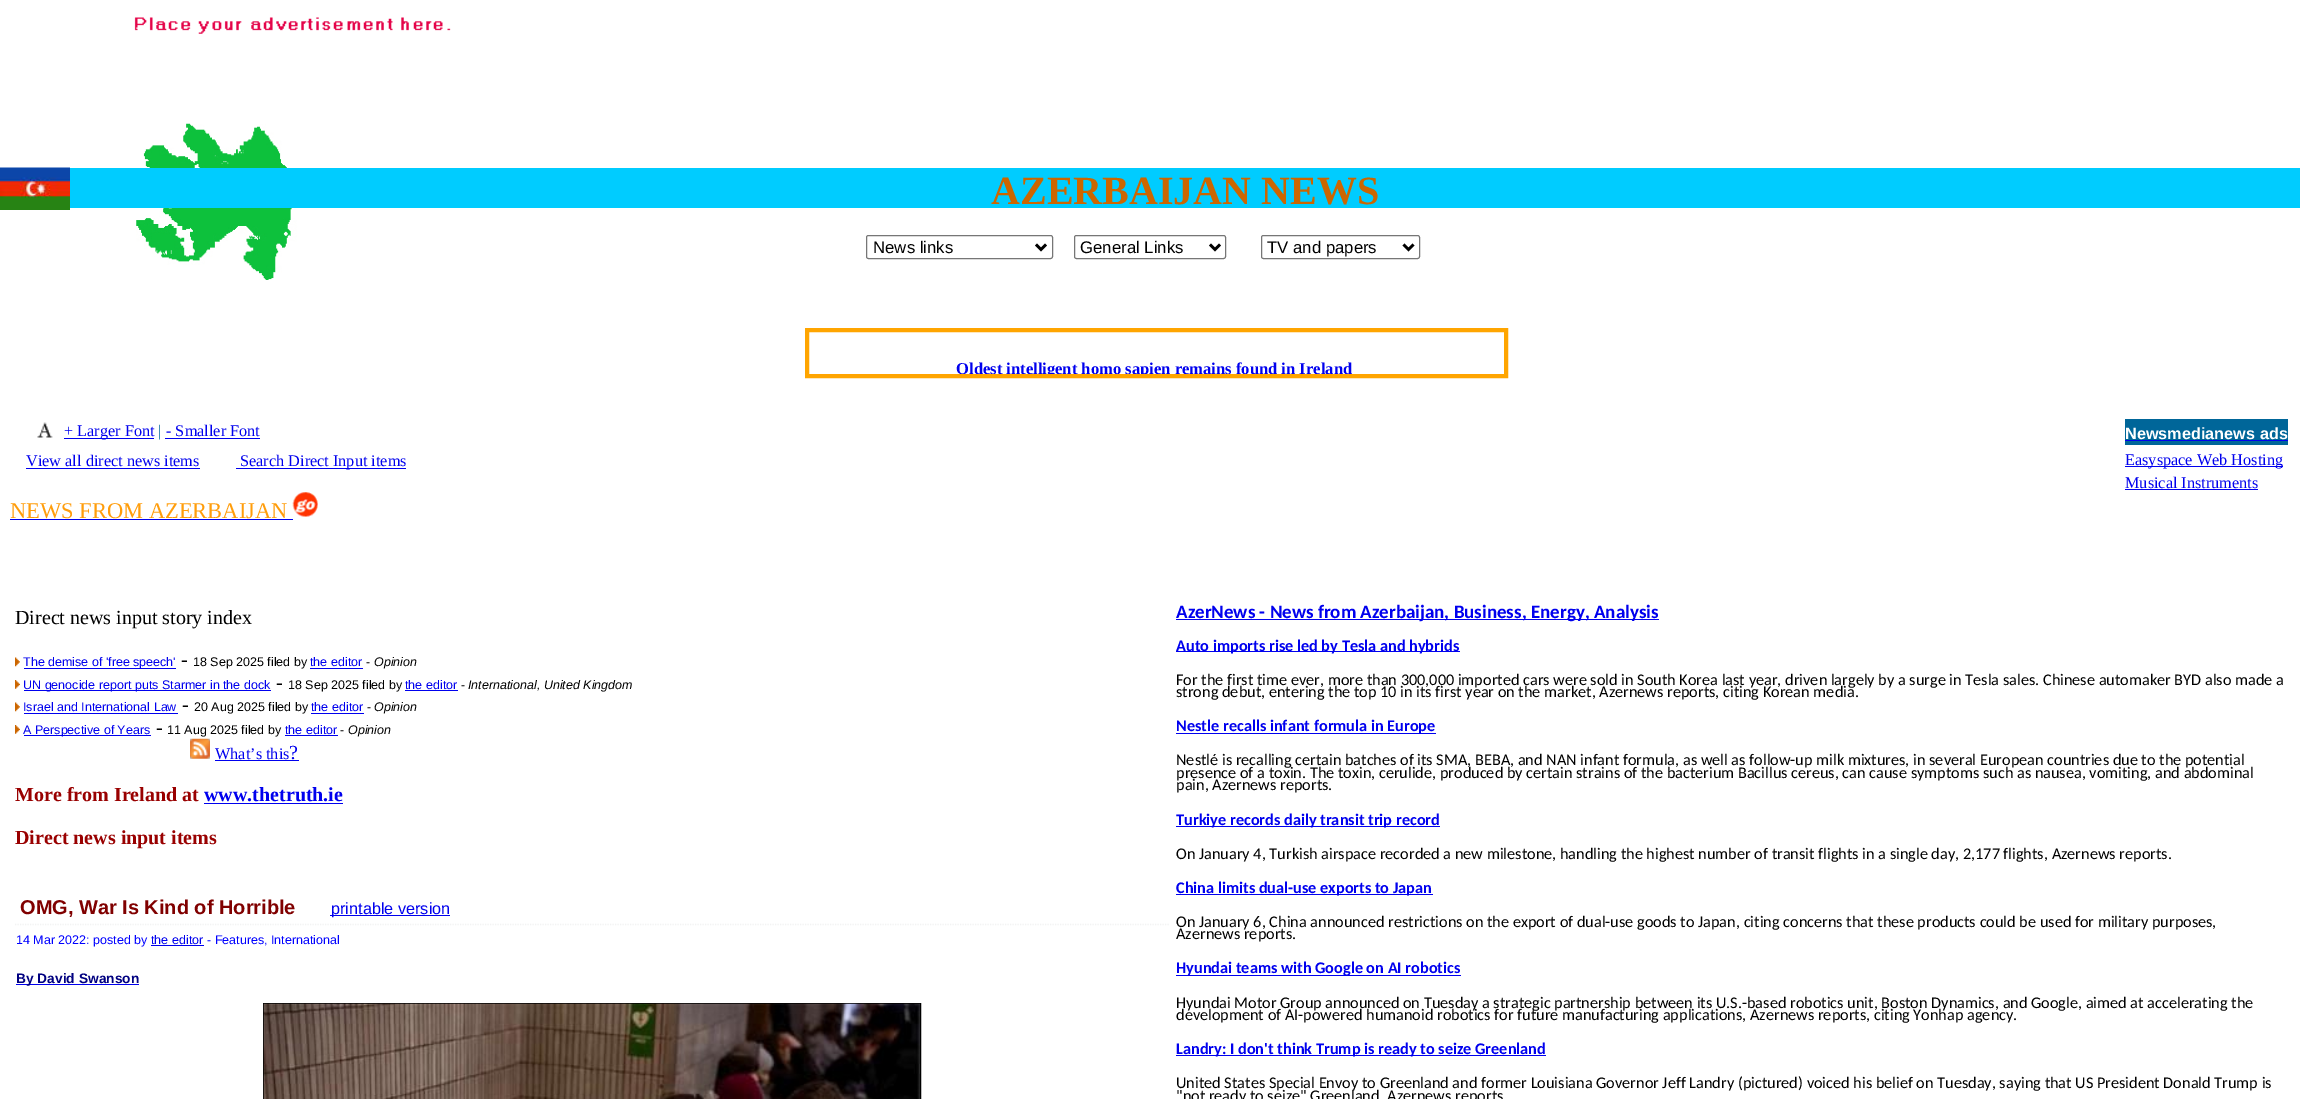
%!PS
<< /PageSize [2300 1099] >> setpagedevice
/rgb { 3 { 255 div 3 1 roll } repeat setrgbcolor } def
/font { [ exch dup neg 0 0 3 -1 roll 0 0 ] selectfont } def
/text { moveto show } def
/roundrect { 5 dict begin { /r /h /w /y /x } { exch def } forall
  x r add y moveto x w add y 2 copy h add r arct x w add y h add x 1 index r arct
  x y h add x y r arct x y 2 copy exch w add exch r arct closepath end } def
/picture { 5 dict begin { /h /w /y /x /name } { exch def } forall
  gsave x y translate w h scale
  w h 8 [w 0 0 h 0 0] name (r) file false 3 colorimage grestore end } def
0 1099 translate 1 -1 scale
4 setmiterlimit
255 255 255 rgb
0 0 2300 1099 rectfill
(img_01.rgb) 134 17 317 17 picture
(img_02.rgb) 136 123 162 157 picture
0 204 255 rgb
70 168 2230 40 rectfill
(img_03.rgb) 0 167 70 43 picture
118 118 118 rgb
866.5 235.5 186 23 2 roundrect stroke
0 0 0 rgb
2.5 setlinewidth
1036 244.5 moveto 5 5 rlineto 5 -5 rlineto stroke
118 118 118 rgb
1 setlinewidth
1074.5 235.5 151 23 2 roundrect stroke
0 0 0 rgb
2.5 setlinewidth
1210 244.5 moveto 5 5 rlineto 5 -5 rlineto stroke
118 118 118 rgb
1 setlinewidth
1261.5 235.5 158 23 2 roundrect stroke
0 0 0 rgb
2.5 setlinewidth
1403.5 244.5 moveto 5 5 rlineto 5 -5 rlineto stroke
255 165 0 rgb
4 setlinewidth
807 330 699 46 rectstroke
(img_04.rgb) 37 422 16 16 picture
0 0 238 rgb
64 438 90 1 rectfill
165 438 95 1 rectfill
26 468 174 1 rectfill
236 468 170 1 rectfill
0 102 153 rgb
2125 419 163 26 rectfill
0 0 238 rgb
2125 440 163 1 rectfill
2125 466 158 1 rectfill
2125 489 133 1 rectfill
10 519 283 1 rectfill
(img_05.rgb) 292 492 26 25 picture
(img_06.rgb) 15 657 5 10 picture
24 668 152 1 rectfill
310 668 53 1 rectfill
(img_07.rgb) 15 680 5 9 picture
24 690 247 1 rectfill
405 690 53 1 rectfill
(img_06.rgb) 15 702 5 10 picture
24 713 154 1 rectfill
311 713 53 1 rectfill
(img_07.rgb) 15 725 5 9 picture
24 735 127 1 rectfill
285 735 53 1 rectfill
(img_08.rgb) 190 738 20 21 picture
215 760 84 1 rectfill
204 803 139 1 rectfill
330 915 120 1 rectfill
242 243 243 rgb
1.2 setlinewidth
[1.25 1.25] 0 setdash
15 924.5 moveto 1154 0 rlineto stroke
0 0 238 rgb
151 945 53 1 rectfill
16 984 123 1 rectfill
0 0 0 rgb
1 setlinewidth
[] 0 setdash
263.5 1003.5 657 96 rectstroke
(img_09.rgb) 263 1003 657 96 picture
0 0 238 rgb
1176 619 483 1 rectfill
1176 651 284 1 rectfill
1176 733 260 1 rectfill
1176 826 264 1 rectfill
1176 894 257 1 rectfill
1176 975 285 1 rectfill
1176 1055 370 1 rectfill
/LiberationSerif-Bold 40 font
204 102 0 rgb
(AZERBAIJAN NEWS) 991 204 text
/LiberationSans-Regular 16.75 font
0 0 0 rgb
(News links) 873 253 text
(General Links) 1080 253 text
(TV and papers) 1267 253 text
gsave
809 331 695 43 rectclip
/LiberationSerif-Bold 16.6 font
0 0 238 rgb
(Oldest intelligent homo sapien remains found in Ireland) 956 374 text
grestore
/LiberationSerif-Regular 16.25 font
0 0 238 rgb
(+ Larger Font) 64 436 text
0 102 153 rgb
(|) 158 436 text
0 0 238 rgb
(- Smaller Font) 166 436 text
(View all direct news items) 26 466 text
(Search Direct Input items) 240 466 text
/LiberationSans-Bold 16.25 font
255 255 255 rgb
(Newsmedianews ads) 2125 439 text
/LiberationSerif-Regular 16.25 font
0 0 238 rgb
(Easyspace Web Hosting) 2125 465 text
(Musical Instruments) 2125 488 text
/LiberationSerif-Regular 22.5 font
255 157 11 rgb
(NEWS FROM AZERBAIJAN) 10 518 text
/LiberationSerif-Regular 20 font
0 0 0 rgb
(Direct news input story index) 15 624 text
/LiberationSans-Regular 12.5 font
0 0 238 rgb
(The demise of 'free speech') 23 666 text
/LiberationSerif-Regular 20 font
0 0 0 rgb
(-) 181 666 text
/LiberationSans-Regular 12.5 font
(18 Sep 2025 filed by) 193 666 text
0 0 238 rgb
(the editor) 310 666 text
0 0 0 rgb
(-) 366 666 text
/LiberationSans-Italic 12.5 font
(Opinion) 374 666 text
/LiberationSans-Regular 12.5 font
0 0 238 rgb
(UN genocide report puts Starmer in the dock) 23 689 text
/LiberationSerif-Regular 20 font
0 0 0 rgb
(-) 276 689 text
/LiberationSans-Regular 12.5 font
(18 Sep 2025 filed by) 288 689 text
0 0 238 rgb
(the editor) 405 689 text
0 0 0 rgb
(-) 461 689 text
/LiberationSans-Italic 12.5 font
(International, United Kingdom) 468 689 text
/LiberationSans-Regular 12.5 font
0 0 238 rgb
(Israel and International Law) 23 711 text
/LiberationSerif-Regular 20 font
0 0 0 rgb
(-) 182 711 text
/LiberationSans-Regular 12.5 font
(20 Aug 2025 filed by) 194 711 text
0 0 238 rgb
(the editor) 311 711 text
0 0 0 rgb
(-) 367 711 text
/LiberationSans-Italic 12.5 font
(Opinion) 374 711 text
/LiberationSans-Regular 12.5 font
0 0 238 rgb
(A Perspective of Years) 23 734 text
/LiberationSerif-Regular 20 font
0 0 0 rgb
(-) 156 734 text
/LiberationSans-Regular 12.5 font
(11 Aug 2025 filed by) 167 734 text
0 0 238 rgb
(the editor) 285 734 text
0 0 0 rgb
(-) 340 734 text
/LiberationSans-Italic 12.5 font
(Opinion) 348 734 text
/LiberationSerif-Regular 16.25 font
0 0 238 rgb
(What’s this) 215 759 text
/LiberationSerif-Regular 20 font
(?) 289 759 text
/LiberationSerif-Bold 20 font
153 0 0 rgb
(More from Ireland at) 15 801 text
0 0 238 rgb
(www.thetruth.ie) 204 801 text
153 0 0 rgb
(Direct news input items) 15 844 text
/LiberationSans-Bold 20 font
128 0 0 rgb
(OMG, War Is Kind of Horrible) 20 914 text
/LiberationSans-Regular 16.25 font
0 0 238 rgb
(printable version) 331 914 text
/LiberationSans-Regular 12.5 font
0 0 255 rgb
(14 Mar 2022: posted by) 16 944 text
0 0 238 rgb
(the editor) 151 944 text
0 0 255 rgb
(- Features, International) 207 944 text
/LiberationSans-Bold 13.75 font
0 0 128 rgb
(By David Swanson) 16 983 text
/Carlito-Bold 19 font
0 0 238 rgb
(AzerNews - News from Azerbaijan, Business, Energy, Analysis) 1176 618 text
/Carlito-Bold 16.25 font
(Auto imports rise led by Tesla and hybrids) 1176 651 text
/Carlito-Regular 16.25 font
0 0 0 rgb
(For the first time ever, more than 300,000 imported cars were sold in South Korea last year, driven largely by a surge in Tesla sales. Chinese automaker BYD also made a) 1176 685 text
(strong debut, entering the top 10 in its first year on the market, Azernews reports, citing Korean media.) 1176 697 text
/Carlito-Bold 16.25 font
0 0 238 rgb
(Nestle recalls infant formula in Europe) 1176 731 text
/Carlito-Regular 16.25 font
0 0 0 rgb
(Nestlé is recalling certain batches of its SMA, BEBA, and NAN infant formula, as well as follow-up milk mixtures, in several European countries due to the potential) 1176 765 text
(presence of a toxin. The toxin, cerulide, produced by certain strains of the bacterium Bacillus cereus, can cause symptoms such as nausea, vomiting, and abdominal) 1176 778 text
(pain, Azernews reports.) 1176 790 text
/Carlito-Bold 16.25 font
0 0 238 rgb
(Turkiye records daily transit trip record) 1176 825 text
/Carlito-Regular 16.25 font
0 0 0 rgb
(On January 4, Turkish airspace recorded a new milestone, handling the highest number of transit flights in a single day, 2,177 flights, Azernews reports.) 1176 859 text
/Carlito-Bold 16.25 font
0 0 238 rgb
(China limits dual-use exports to Japan) 1176 893 text
/Carlito-Regular 16.25 font
0 0 0 rgb
(On January 6, China announced restrictions on the export of dual-use goods to Japan, citing concerns that these products could be used for military purposes,) 1176 927 text
(Azernews reports.) 1176 939 text
/Carlito-Bold 16.25 font
0 0 238 rgb
(Hyundai teams with Google on AI robotics) 1176 973 text
/Carlito-Regular 16.25 font
0 0 0 rgb
(Hyundai Motor Group announced on Tuesday a strategic partnership between its U.S.-based robotics unit, Boston Dynamics, and Google, aimed at accelerating the) 1176 1008 text
(development of AI-powered humanoid robotics for future manufacturing applications, Azernews reports, citing Yonhap agency.) 1176 1020 text
/Carlito-Bold 16.25 font
0 0 238 rgb
(Landry: I don't think Trump is ready to seize Greenland) 1176 1054 text
/Carlito-Regular 16.25 font
0 0 0 rgb
(United States Special Envoy to Greenland and former Louisiana Governor Jeff Landry \(pictured\) voiced his belief on Tuesday, saying that US President Donald Trump is) 1176 1088 text
("not ready to seize" Greenland, Azernews reports) 1176 1101 text
showpage
